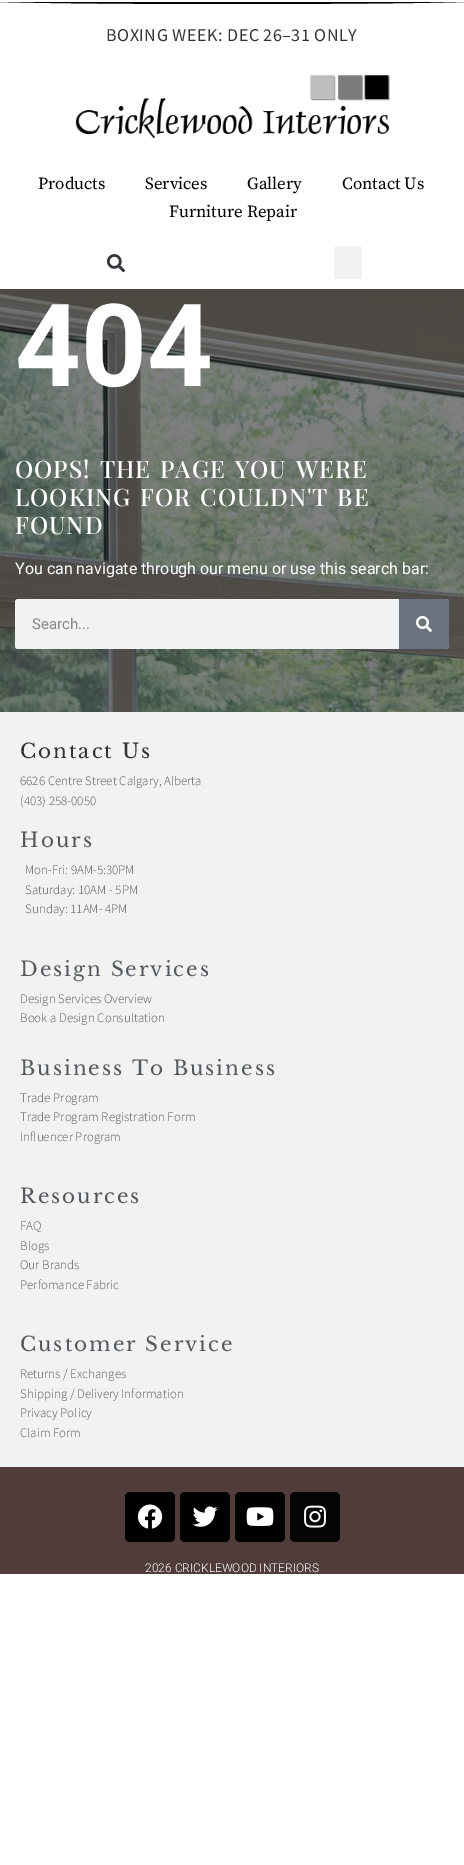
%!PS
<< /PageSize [464 1865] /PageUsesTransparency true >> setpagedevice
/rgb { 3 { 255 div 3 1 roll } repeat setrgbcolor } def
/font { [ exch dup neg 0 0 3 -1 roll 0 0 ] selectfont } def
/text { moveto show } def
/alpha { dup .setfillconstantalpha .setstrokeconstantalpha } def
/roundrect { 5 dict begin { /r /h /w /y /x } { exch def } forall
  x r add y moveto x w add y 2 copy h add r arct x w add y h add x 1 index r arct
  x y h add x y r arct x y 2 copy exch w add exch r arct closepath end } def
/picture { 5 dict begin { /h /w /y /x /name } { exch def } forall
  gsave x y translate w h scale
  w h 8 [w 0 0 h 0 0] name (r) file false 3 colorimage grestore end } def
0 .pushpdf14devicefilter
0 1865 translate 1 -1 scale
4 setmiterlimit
255 255 255 rgb
0 0 464 1865 rectfill
0 0 0 rgb
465 2 moveto -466 0 rlineto 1 0 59 2 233 2 rcurveto 174 0 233 -2 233 -2 rcurveto closepath fill
(img_01.rgb) 75 75 315 64 picture
(img_02.rgb) 106 254 19 19 picture
242 242 242 rgb
334 246 28 33 3 roundrect fill
(img_03.rgb) 0 289 464 423 picture
241 242 243 rgb
15 599 434 50 3 roundrect fill
105 114 125 rgb
399 599 moveto 47 0 rlineto 1.5 0 3 1.5 3 3 rcurveto 0 44 rlineto 0 1.5 -1.5 3 -3 3 rcurveto -47 0 rlineto closepath fill
(img_04.rgb) 416 616 16 16 picture
0.05 alpha
0 0 0 rgb
218 669 28 33 rectfill
1 alpha
242 242 242 rgb
0 712 464 755 rectfill
80 61 59 rgb
0 1467 464 107 rectfill
0 0 0 rgb
125 1492 50 50 5 roundrect fill
(img_05.rgb) 137 1504 26 25 picture
180 1492 50 50 5 roundrect fill
(img_06.rgb) 192 1506 26 21 picture
235 1492 50 50 5 roundrect fill
(img_07.rgb) 246 1507 28 19 picture
5 5 5 rgb
290 1492 50 50 5 roundrect fill
(img_08.rgb) 304 1505 22 23 picture
/SourceSansPro-Regular 18 font
51 51 51 rgb
106 41 moveto 0.5 0 (BOXING WEEK: DEC 26–31 ONLY) ashow
/SourceSerifPro-Regular 17 font
0 0 0 rgb
(Products) 38 189 text
(Services) 145 189 text
(Gallery) 247 189 text
(Contact Us) 342 189 text
(Furniture Repair) 169 217 text
/Roboto-Bold 115 font
255 255 255 rgb
(404) 15 386 text
/PlayfairDisplay-Medium 24 font
15 478 moveto 2 0 32 1 0 (OOPS! THE PAGE YOU WERE) awidthshow
15 506 moveto 2 0 32 1 0 (LOOKING FOR COULDN'T BE) awidthshow
15 534 moveto 1 0 (FOUND) ashow
/Roboto-Regular 16 font
(You can navigate through our menu or use this search bar:) 15 574 text
/Roboto-Regular 15 font
134 138 142 rgb
(Search...) 32 629 text
/LibreBaskerville-Regular 20 font
51 51 51 rgb
20 758 moveto 2 0 (Contact Us) ashow
/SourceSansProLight-Light 13 font
84 89 95 rgb
(6626 Centre Street Calgary, Alberta) 20 785 text
(\(403\) 258-0050) 20 805 text
/LibreBaskerville-Regular 20 font
20 847 moveto 2 0 (Hours) ashow
/SourceSansProLight-Light 13 font
(Mon-Fri: 9AM-5:30PM) 25 874 text
(Saturday: 10AM - 5PM) 25 894 text
(Sunday: 11AM- 4PM) 25 913 text
/LibreBaskerville-Regular 20 font
20 976 moveto 2 0 (Design Services) ashow
/SourceSansProLight-Light 13 font
(Design Services Overview) 20 1003 text
(Book a Design Consultation) 20 1022 text
/LibreBaskerville-Regular 20 font
20 1075 moveto 2 0 (Business To Business) ashow
/SourceSansProLight-Light 13 font
(Trade Program) 20 1102 text
(Trade Program Registration Form) 20 1121 text
(Influencer Program) 20 1141 text
/LibreBaskerville-Regular 20 font
20 1203 moveto 2 0 (Resources) ashow
/SourceSansProLight-Light 13 font
(FAQ) 20 1230 text
(Blogs) 20 1250 text
(Our Brands) 20 1269 text
(Perfomance Fabric) 20 1289 text
/LibreBaskerville-Regular 20 font
20 1351 moveto 2 0 (Customer Service) ashow
/SourceSansProLight-Light 13 font
(Returns / Exchanges) 20 1378 text
(Shipping / Delivery Information) 20 1398 text
(Privacy Policy) 20 1417 text
(Claim Form) 20 1437 text
/Roboto-Light 12 font
255 255 255 rgb
(2026 CRICKLEWOOD INTERIORS) 145 1572 text
.poppdf14devicefilter showpage
